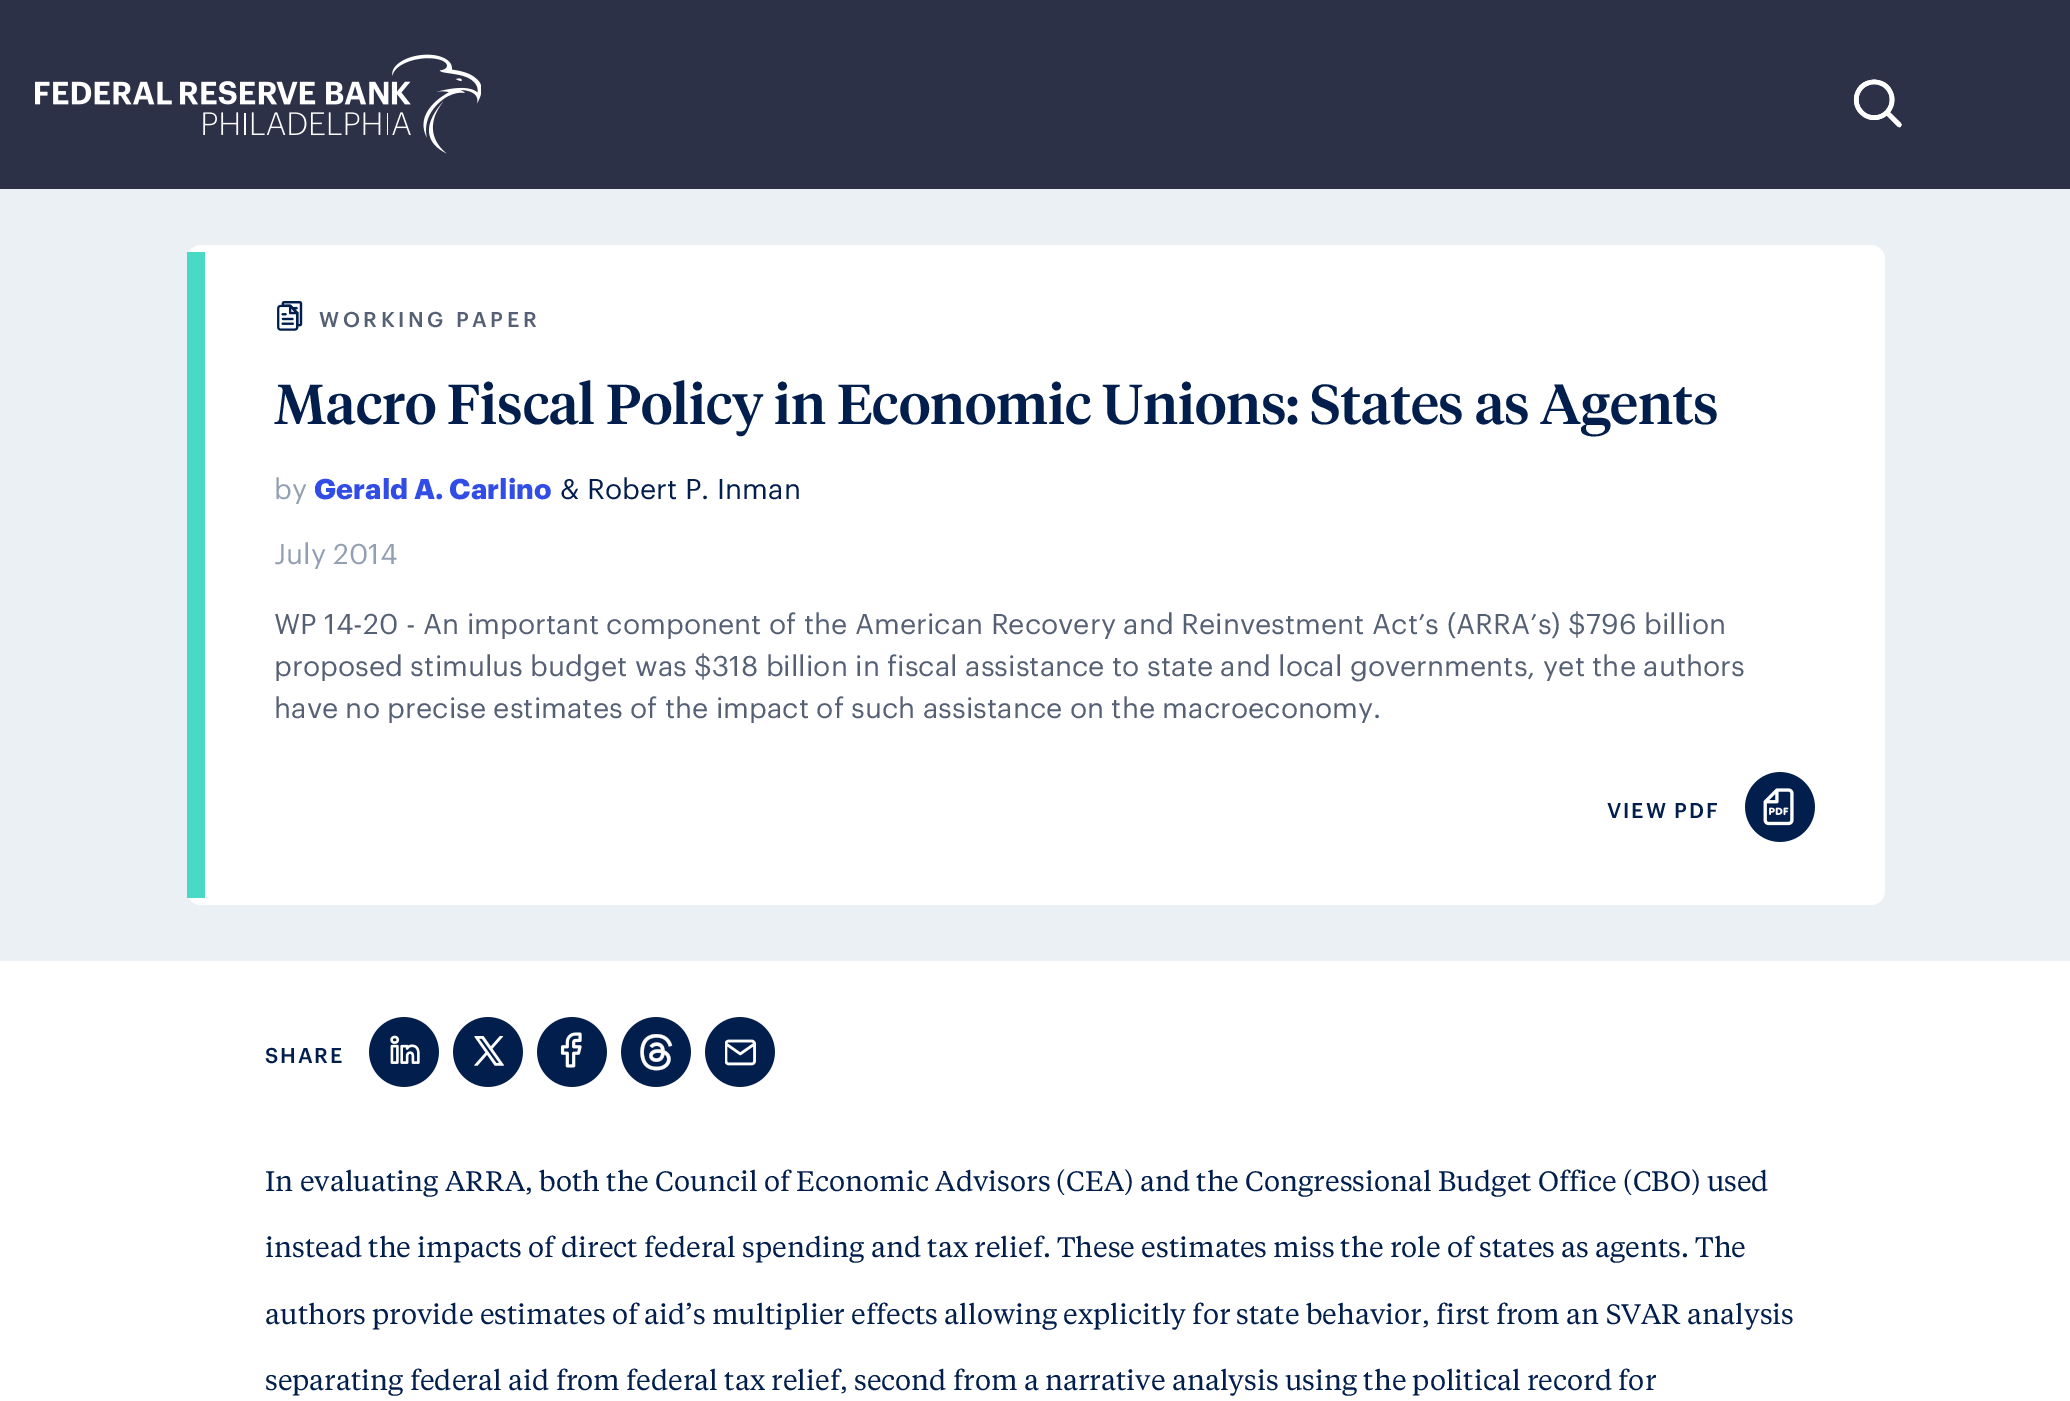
%!PS
<< /PageSize [2070 1401] >> setpagedevice
/rgb { 3 { 255 div 3 1 roll } repeat setrgbcolor } def
/font { [ exch dup neg 0 0 3 -1 roll 0 0 ] selectfont } def
/text { moveto show } def
/roundrect { 5 dict begin { /r /h /w /y /x } { exch def } forall
  x r add y moveto x w add y 2 copy h add r arct x w add y h add x 1 index r arct
  x y h add x y r arct x y 2 copy exch w add exch r arct closepath end } def
/picture { 5 dict begin { /h /w /y /x /name } { exch def } forall
  gsave x y translate w h scale
  w h 8 [w 0 0 h 0 0] name (r) file false 3 colorimage grestore end } def
0 1401 translate 1 -1 scale
4 setmiterlimit
255 255 255 rgb
0 0 2070 1401 rectfill
45 49 72 rgb
0 0 2070 189 rectfill
(img_01.rgb) 35 54 446 100 picture
(img_02.rgb) 1853 79 49 49 picture
235 240 244 rgb
0 189 2070 772 rectfill
255 255 255 rgb
187 245 1698 660 14 roundrect fill
73 218 197 rgb
187 252 18 646 rectfill
(img_03.rgb) 277 301 26 30 picture
(img_04.rgb) 1745 772 70 70 picture
(img_05.rgb) 369 1017 70 70 picture
(img_06.rgb) 453 1017 70 70 picture
(img_07.rgb) 537 1017 70 70 picture
(img_08.rgb) 621 1017 70 70 picture
(img_09.rgb) 705 1017 70 70 picture
/Graphik-Medium 21 font
85 96 116 rgb
319 327 moveto 3.5 0 (WORKING PAPER) ashow
/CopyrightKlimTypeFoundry-Medium 56 font
1 30 77 rgb
(Macro Fiscal Policy in Economic Unions: States as Agents) 274 424 text
/Graphik-Regular 28 font
146 159 178 rgb
(by) 274 499 text
/Graphik-Bold 28 font
50 77 230 rgb
(Gerald A. Carlino) 314 499 text
/Graphik-Regular 28 font
1 30 77 rgb
(&) 560 499 text
(Robert P. Inman) 587 499 text
146 159 178 rgb
(July 2014) 274 564 text
85 96 116 rgb
(WP 14-20 - An important component of the American Recovery and Reinvestment Act’s \(ARRA’s\) $796 billion) 274 634 text
(proposed stimulus budget was $318 billion in fiscal assistance to state and local governments, yet the authors) 274 676 text
(have no precise estimates of the impact of such assistance on the macroeconomy.) 274 718 text
/Graphik-Medium 21 font
1 30 77 rgb
1607 818 moveto 1.75 0 (VIEW PDF) ashow
265 1063 moveto 1.75 0 (SHARE) ashow
/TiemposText-Regular 28 font
(In evaluating ARRA, both the Council of Economic Advisors \(CEA\) and the Congressional Budget Office \(CBO\) used) 265 1191 text
(instead the impacts of direct federal spending and tax relief. These estimates miss the role of states as agents. The) 265 1257 text
(authors provide estimates of aid’s multiplier effects allowing explicitly for state behavior, first from an SVAR analysis) 265 1324 text
(separating federal aid from federal tax relief, second from a narrative analysis using the political record for) 265 1390 text
showpage
